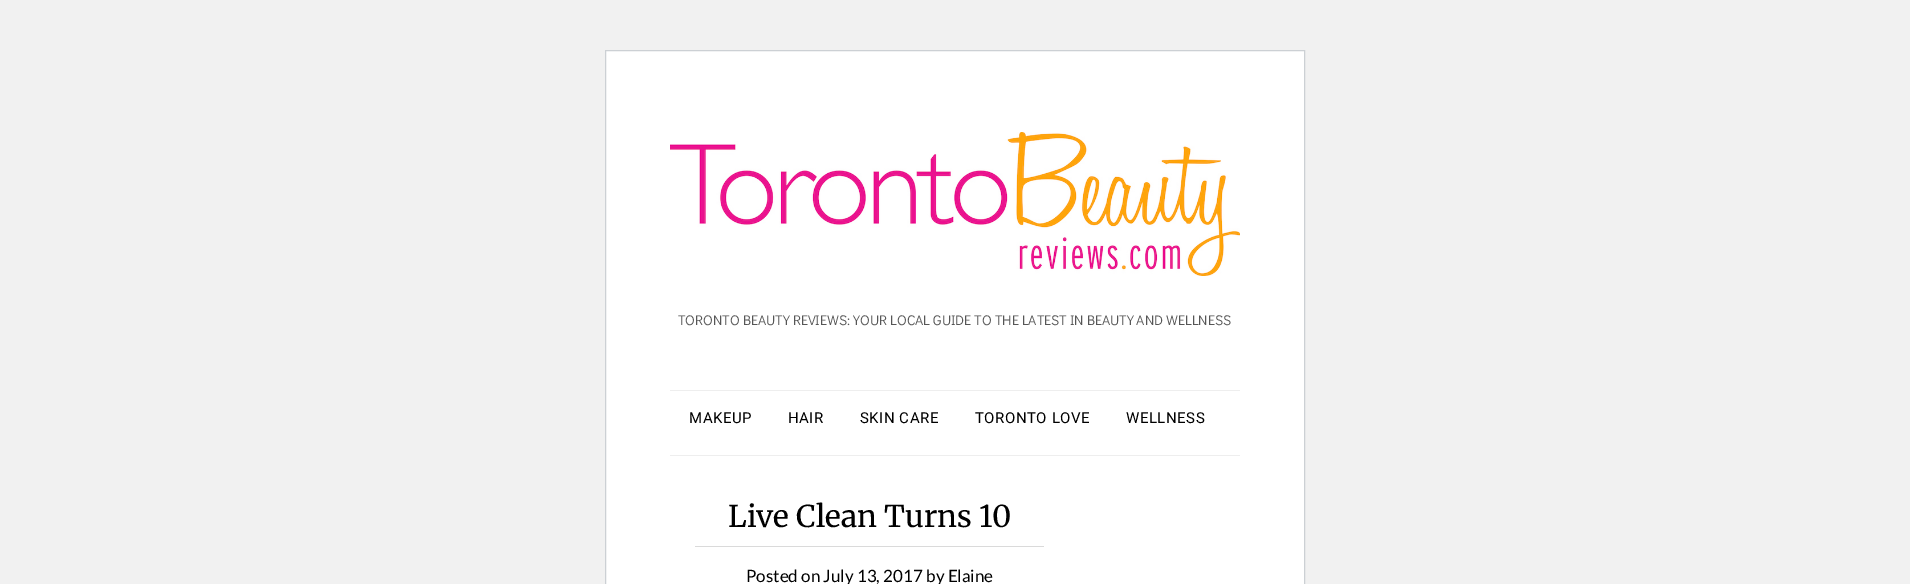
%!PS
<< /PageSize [1910 584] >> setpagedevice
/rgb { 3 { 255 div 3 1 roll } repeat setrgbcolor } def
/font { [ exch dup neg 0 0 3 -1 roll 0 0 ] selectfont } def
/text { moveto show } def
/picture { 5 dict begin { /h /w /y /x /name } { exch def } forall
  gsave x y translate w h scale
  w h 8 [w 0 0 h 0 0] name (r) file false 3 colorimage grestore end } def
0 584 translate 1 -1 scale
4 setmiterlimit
241 241 241 rgb
0 0 1910 584 rectfill
255 255 255 rgb
605.5 50.5 moveto 699 0 rlineto 0 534 rlineto -699 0 rlineto closepath gsave fill grestore
204 208 212 rgb
stroke
(img_01.rgb) 670 132 570 144 picture
238 238 238 rgb
670 390 570 1 rectfill
670 455 570 1 rectfill
218 218 218 rgb
695 546 349 1 rectfill
/DidactGothic-Regular 14 font
86 86 86 rgb
(TORONTO BEAUTY REVIEWS: YOUR LOCAL GUIDE TO THE LATEST IN BEAUTY AND WELLNESS) 678 325 text
/Roboto-Regular 15 font
0 0 0 rgb
689 423 moveto 0.5 0 (MAKEUP) ashow
788 423 moveto 0.5 0 (HAIR) ashow
860 423 moveto 0.5 0 (SKIN CARE) ashow
975 423 moveto 0.5 0 (TORONTO LOVE) ashow
1126 423 moveto 0.5 0 (WELLNESS) ashow
/Merriweather-Regular 30 font
(Live Clean Turns 10) 728 527 text
/Lato-Regular 17 font
(Posted on July 13, 2017 by Elaine) 746 582 text
showpage
